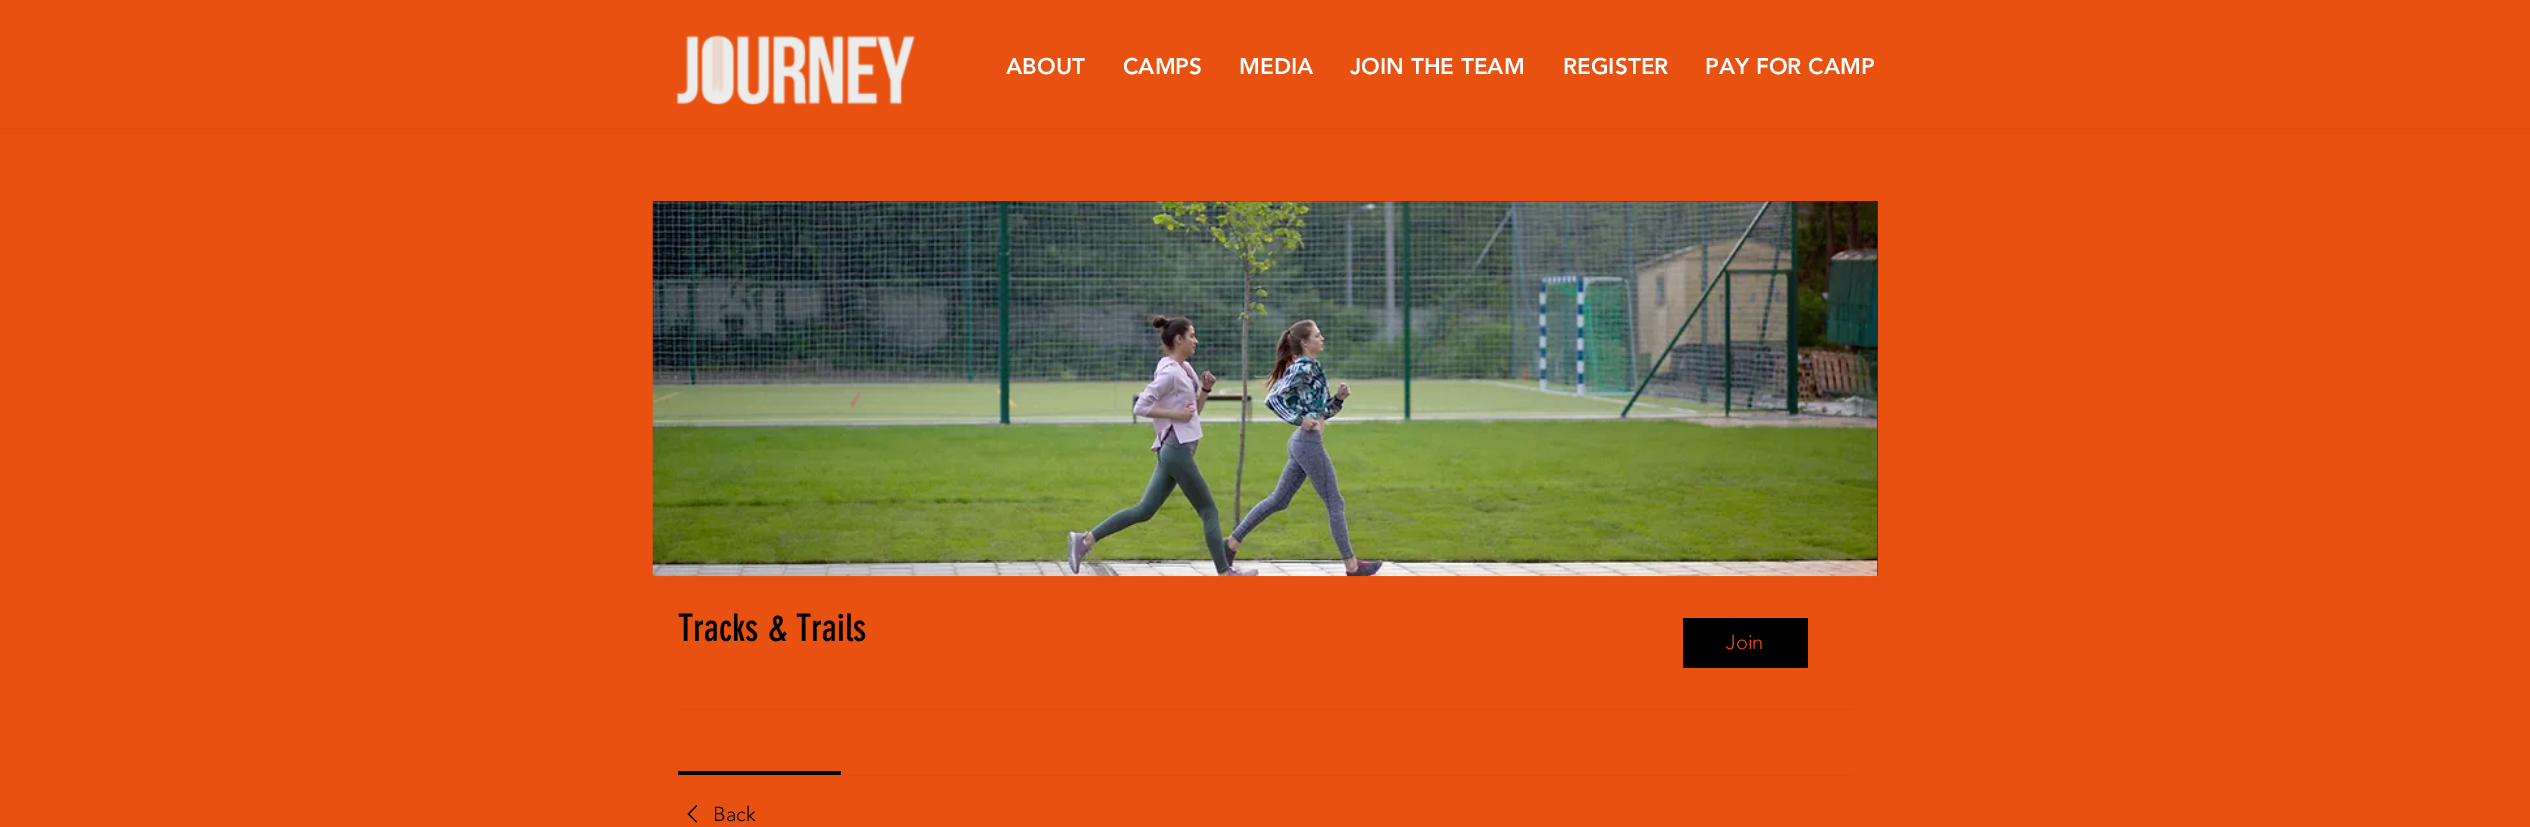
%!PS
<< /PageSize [2530 827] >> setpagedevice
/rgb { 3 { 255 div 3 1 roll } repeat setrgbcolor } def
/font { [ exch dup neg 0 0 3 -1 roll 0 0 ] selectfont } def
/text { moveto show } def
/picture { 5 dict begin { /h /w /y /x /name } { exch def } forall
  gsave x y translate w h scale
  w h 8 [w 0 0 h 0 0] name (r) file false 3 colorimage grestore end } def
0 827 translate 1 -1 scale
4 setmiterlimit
232 81 16 rgb
0 0 2530 827 rectfill
(img_01.rgb) 676 34 239 72 picture
232 76 12 rgb
0 128 2530 6 rectfill
240 77 12 rgb
748.5 158.5 moveto 8.5 9 rlineto -8.5 9 rlineto -1 -1 rlineto 8 -8 rlineto -8 -8 rlineto closepath eofill
853.5 158.5 moveto 8.5 9 rlineto -8.5 9 rlineto -1 -1 rlineto 8 -8 rlineto -8 -8 rlineto closepath eofill
93 32 6 rgb
653 201 1225 375 rectfill
(img_02.rgb) 652 201 1226 376 picture
(img_03.rgb) 1616 633 20 19 picture
0 0 0 rgb
1683 618 125 50 rectfill
(img_04.rgb) 1826 633 23 17 picture
232 76 12 rgb
678 709 1175 1 rectfill
678 775 1175 1 rectfill
0 0 0 rgb
678 771 163 4 rectfill
696.5 805 moveto 0.5 1 rlineto -7.5 8 rlineto 7.5 8 rlineto -0.5 0.5 rlineto -9 -8.5 rlineto closepath eofill
/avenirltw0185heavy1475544-Black 22.5 font
255 255 255 rgb
(ABOUT) 1006 74 text
(CAMPS) 1123 74 text
(MEDIA) 1239 74 text
(JOIN THE TEAM) 1350 74 text
(REGISTER) 1563 74 text
(PAY FOR CAMP) 1705 74 text
/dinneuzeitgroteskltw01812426-Regular 37.5 font
0 0 0 rgb
(Tracks & Trails) 678 641 text
/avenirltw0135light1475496-Light 20 font
232 81 16 rgb
(Join) 1726 649 text
0 0 0 rgb
(Back) 713 821 text
showpage
